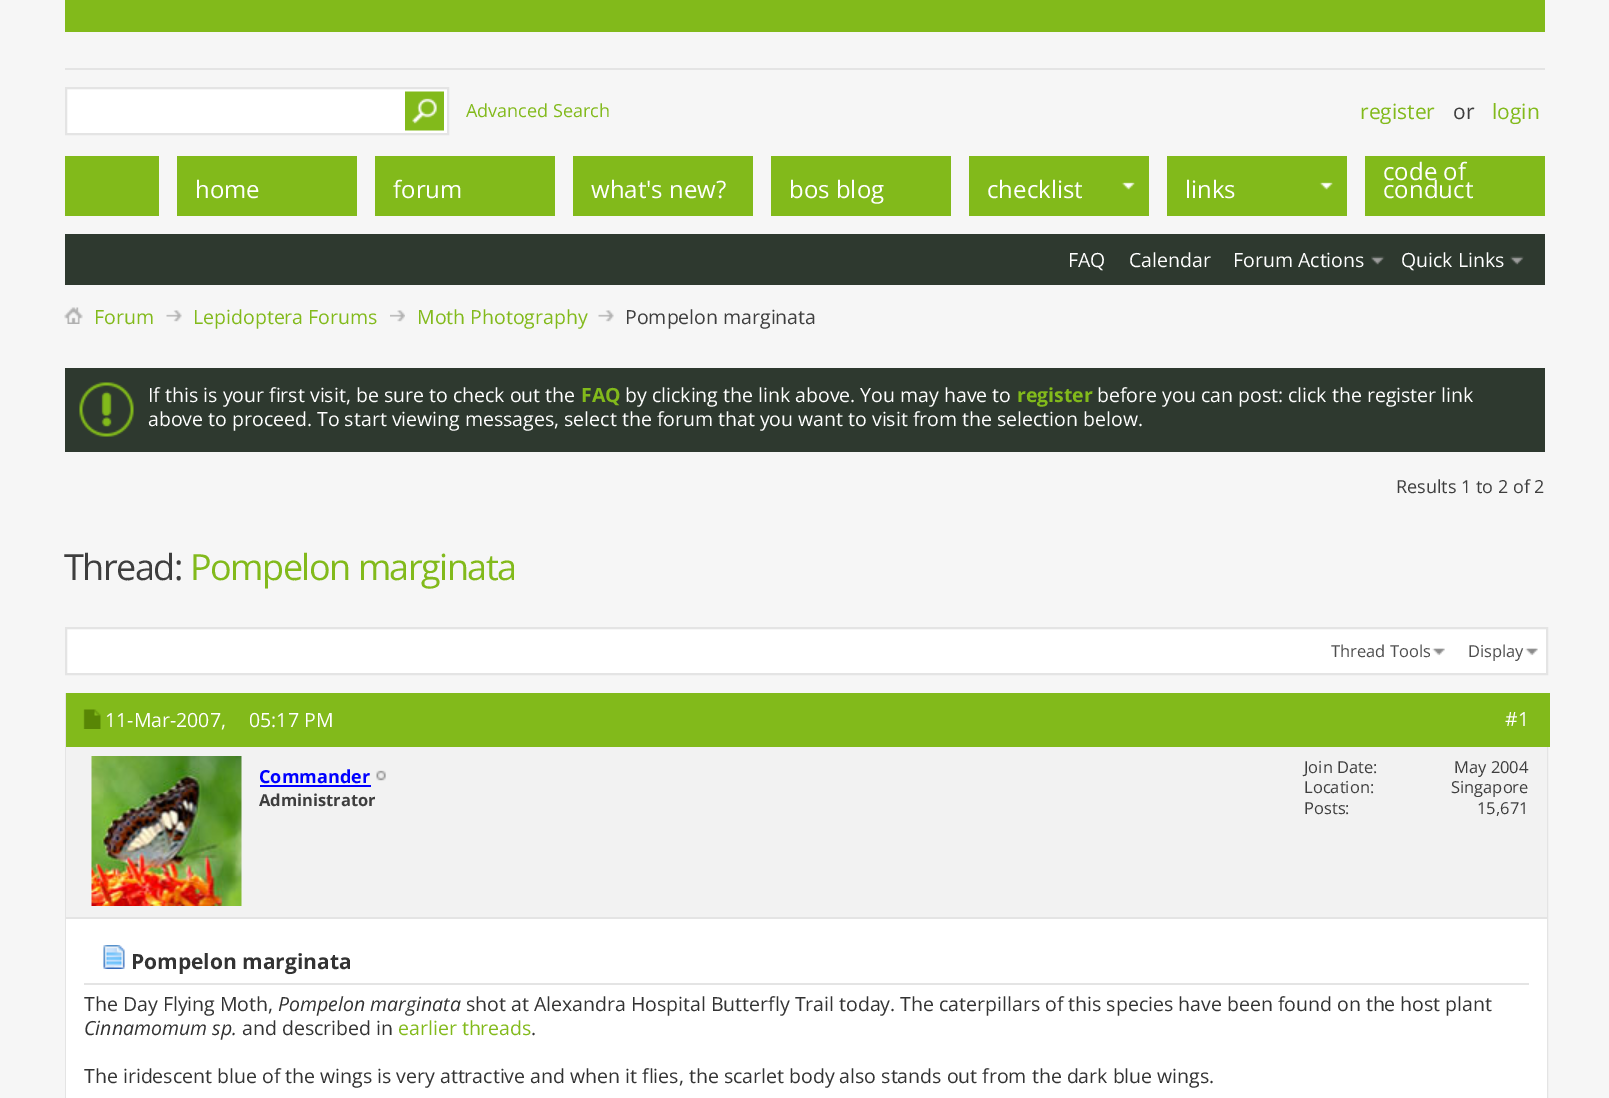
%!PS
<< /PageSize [1609 1098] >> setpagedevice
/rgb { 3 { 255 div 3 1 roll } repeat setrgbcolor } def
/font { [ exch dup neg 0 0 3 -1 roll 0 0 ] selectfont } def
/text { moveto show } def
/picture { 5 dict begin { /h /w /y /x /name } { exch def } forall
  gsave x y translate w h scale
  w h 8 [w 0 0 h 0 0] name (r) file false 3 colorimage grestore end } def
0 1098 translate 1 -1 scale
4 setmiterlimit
246 246 246 rgb
0 0 1609 1098 rectfill
130 186 27 rgb
65 0 1480 32 rectfill
228 228 228 rgb
65 68 1480 2 rectfill
255 255 255 rgb
66 88 moveto 382 0 rlineto 0 46 rlineto -382 0 rlineto closepath gsave fill grestore
228 228 228 rgb
2 setlinewidth
stroke
(img_01.rgb) 405 91 39 40 picture
130 186 27 rgb
65 156 1480 60 rectfill
246 246 246 rgb
159 156 18 60 rectfill
1347 156 18 60 rectfill
357 156 18 60 rectfill
46 57 47 rgb
65 234 1480 51 rectfill
(img_02.rgb) 1371 256 14 9 picture
(img_03.rgb) 1510 256 14 9 picture
246 246 246 rgb
555 156 18 60 rectfill
753 156 18 60 rectfill
951 156 18 60 rectfill
(img_04.rgb) 1121 182 14 8 picture
1149 156 18 60 rectfill
(img_05.rgb) 1319 182 14 8 picture
(img_06.rgb) 64 307 19 17 picture
(img_07.rgb) 166 310 16 12 picture
(img_08.rgb) 390 310 15 12 picture
(img_09.rgb) 598 310 16 12 picture
46 57 47 rgb
65 368 1480 84 rectfill
(img_10.rgb) 79 382 55 55 picture
255 255 255 rgb
66 628 moveto 1481 0 rlineto 0 46 rlineto -1481 0 rlineto closepath gsave fill grestore
228 228 228 rgb
stroke
(img_11.rgb) 1432 648 13 8 picture
(img_12.rgb) 1525 648 13 8 picture
66 694 1481 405 rectstroke
130 186 27 rgb
66 693 1484 54 rectfill
(img_13.rgb) 83 709 18 20 picture
242 242 242 rgb
66 747 1481 170 rectfill
228 228 228 rgb
66 917 1481 2 rectfill
(img_14.rgb) 91 756 151 150 picture
0 0 255 rgb
260 785 111 2 rectfill
(img_15.rgb) 376 770 10 11 picture
255 255 255 rgb
66 919 1481 179 rectfill
228 228 228 rgb
84 983 1445 2 rectfill
(img_16.rgb) 103 945 22 24 picture
/OpenSans-Regular 18 font
130 186 27 rgb
(Advanced Search) 466 117 text
/OpenSans-Regular 21 font
(register) 1360 119 text
62 62 62 rgb
(or) 1453 119 text
130 186 27 rgb
(login) 1492 119 text
/OpenSans-Regular 24 font
255 255 255 rgb
(home) 195 198 text
(code of) 1383 180 text
(conduct) 1383 198 text
(forum) 393 198 text
/OpenSans-Regular 19.5 font
(FAQ) 1068 267 text
(Calendar) 1129 267 text
(Forum Actions) 1233 267 text
(Quick Links) 1401 267 text
/OpenSans-Regular 24 font
(what's new?) 591 198 text
(bos blog) 789 198 text
(checklist) 987 198 text
(links) 1185 198 text
/OpenSans-Regular 19.5 font
130 186 27 rgb
(Forum) 94 324 text
(Lepidoptera Forums) 193 324 text
(Moth Photography) 417 324 text
62 62 62 rgb
(Pompelon marginata) 625 324 text
255 255 255 rgb
(If this is your first visit, be sure to check out the) 148 402 text
/OpenSans-Bold 19.5 font
130 186 27 rgb
(FAQ) 581 402 text
/OpenSans-Regular 19.5 font
255 255 255 rgb
(by clicking the link above. You may have to) 625 402 text
/OpenSans-Bold 19.5 font
130 186 27 rgb
(register) 1017 402 text
/OpenSans-Regular 19.5 font
255 255 255 rgb
(before you can post: click the register link) 1097 402 text
(above to proceed. To start viewing messages, select the forum that you want to visit from the selection below.) 148 426 text
/OpenSans-Regular 18 font
62 62 62 rgb
(Results 1 to 2 of 2) 1396 493 text
/OpenSans-Regular 36 font
64 580 moveto -1.5 0 (Thread:) ashow
130 186 27 rgb
190 580 moveto -1.5 0 (Pompelon marginata) ashow
/OpenSans-Regular 16.5 font
78 78 78 rgb
(Thread Tools) 1331 657 text
(Display) 1468 657 text
/OpenSans-Regular 19.5 font
255 255 255 rgb
(11-Mar-2007,) 105 727 text
(05:17 PM) 249 727 text
(#1) 1505 726 text
/OpenSans-Bold 18 font
0 0 255 rgb
(Commander) 259 783 text
/OpenSans-Bold 16.5 font
62 62 62 rgb
(Administrator) 259 806 text
/OpenSans-Regular 16.5 font
(Join Date:) 1304 773 text
(May 2004) 1454 773 text
(Location:) 1304 793 text
(Singapore) 1451 793 text
(Posts:) 1304 814 text
(15,671) 1477 814 text
/OpenSans-Bold 21 font
51 51 51 rgb
(Pompelon marginata) 131 969 text
/OpenSans-Regular 19.5 font
(The Day Flying Moth,) 84 1011 text
/OpenSans-Italic 19.5 font
(Pompelon marginata) 278 1011 text
/OpenSans-Regular 19.5 font
(shot at Alexandra Hospital Butterfly Trail today. The caterpillars of this species have been found on the host plant) 466 1011 text
/OpenSans-Italic 19.5 font
(Cinnamomum sp.) 84 1035 text
/OpenSans-Regular 19.5 font
(and described in) 242 1035 text
130 186 27 rgb
(earlier threads) 398 1035 text
51 51 51 rgb
(.) 531 1035 text
(The iridescent blue of the wings is very attractive and when it flies, the scarlet body also stands out from the dark blue wings.) 84 1083 text
showpage
